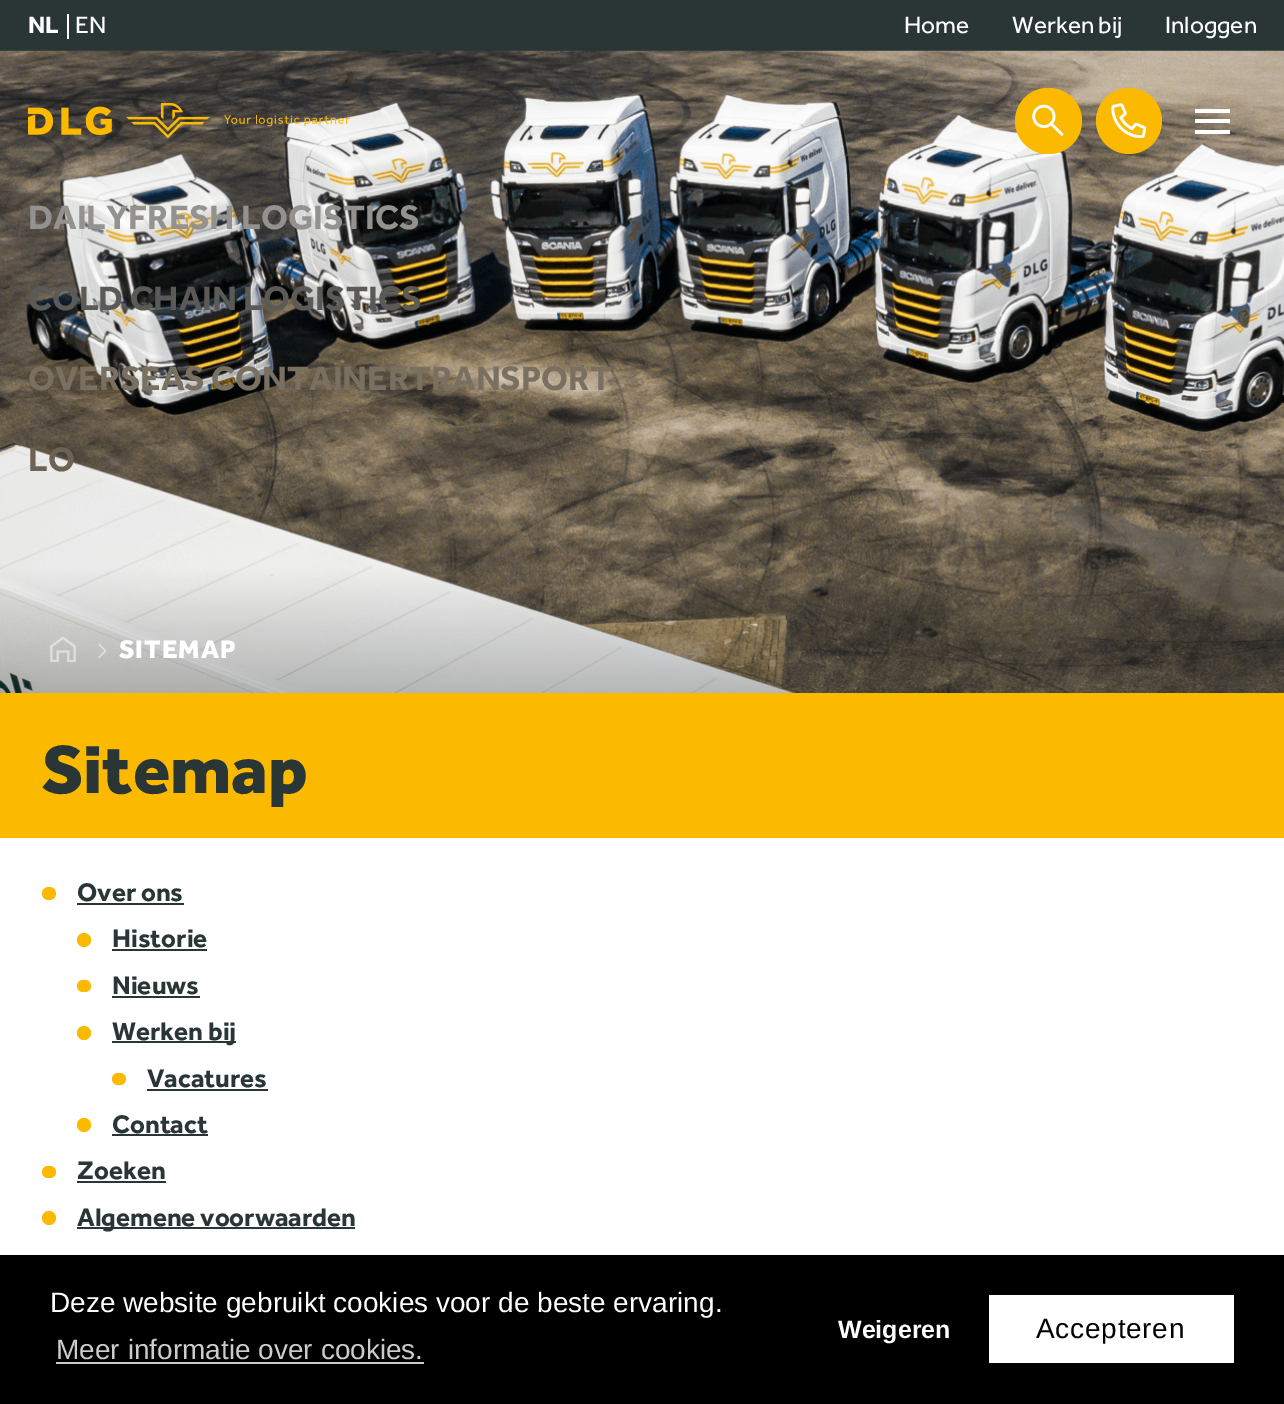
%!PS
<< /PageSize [1284 1404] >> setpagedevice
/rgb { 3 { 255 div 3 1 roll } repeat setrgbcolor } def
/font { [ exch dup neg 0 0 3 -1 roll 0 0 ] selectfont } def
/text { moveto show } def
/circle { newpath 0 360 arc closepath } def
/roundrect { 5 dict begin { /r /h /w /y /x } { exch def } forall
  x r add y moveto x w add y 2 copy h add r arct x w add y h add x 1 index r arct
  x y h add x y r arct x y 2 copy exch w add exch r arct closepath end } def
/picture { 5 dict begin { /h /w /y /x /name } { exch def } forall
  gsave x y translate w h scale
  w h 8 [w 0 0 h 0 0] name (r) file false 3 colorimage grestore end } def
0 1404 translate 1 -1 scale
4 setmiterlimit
255 255 255 rgb
0 0 1284 1404 rectfill
42 54 54 rgb
0 0 1284 51 rectfill
255 255 255 rgb
67 14 2 25 rectfill
(img_06.rgb) 0 50 1284 643 picture
(img_01.rgb) 28 106 84 29 picture
(img_02.rgb) 126 103 84 36 picture
(img_03.rgb) 224 115 126 12 picture
251 185 0 rgb
1015 88 67 66 33 roundrect fill
(img_04.rgb) 1032 104 32 33 picture
1129 121 33 circle fill
(img_05.rgb) 1111 103 35 35 picture
255 255 255 rgb
1195 119 35 4 rectfill
1195 109 35 4 rectfill
1195 130 35 4 rectfill
(img_07.rgb) 50 636 26 26 picture
(img_08.rgb) 98 643 9 15 picture
251 185 0 rgb
0 693 1284 145 rectfill
42 887 14 13 6.5 roundrect fill
42 54 54 rgb
77 903 107 2 rectfill
251 185 0 rgb
84 940 7 circle fill
42 54 54 rgb
112 949 95 2 rectfill
251 185 0 rgb
77 980 14 12 6 roundrect fill
42 54 54 rgb
112 996 88 2 rectfill
251 185 0 rgb
84 1033 7 circle fill
42 54 54 rgb
112 1041 124 2 rectfill
251 185 0 rgb
112 1073 14 12 6 roundrect fill
42 54 54 rgb
147 1089 121 2 rectfill
251 185 0 rgb
84 1125 7 circle fill
42 54 54 rgb
112 1134 96 2 rectfill
251 185 0 rgb
42 1166 14 12 6 roundrect fill
42 54 54 rgb
77 1181 89 2 rectfill
251 185 0 rgb
49 1218 7 circle fill
42 54 54 rgb
77 1227 278 2 rectfill
0 0 0 rgb
0 1255 1284 149 rectfill
204 204 204 rgb
56 1362 368 2 rectfill
255 255 255 rgb
989 1295 245 68 rectfill
/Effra-Bold 24.5 font
(NL) 28 33 text
/Effra-Regular 24.5 font
(EN) 75 33 text
(Home) 904 33 text
(Werken bij) 1012 33 text
(Inloggen) 1165 33 text
/Effra-Bold 35 font
148 146 142 rgb
(DAILYFRESH LOGISTICS) 28 229 text
91 90 87 rgb
(COLD CHAIN LOGISTICS) 28 310 text
122 112 97 rgb
(OVERSEAS CONTAINERTRANSPORT) 28 390 text
109 98 83 rgb
(LO) 28 471 text
/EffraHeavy-Black 26.25 font
255 255 255 rgb
119 658 moveto 1 0 (SITEMAP) ashow
/EffraHeavy-Black 70 font
42 54 54 rgb
(Sitemap) 42 793 text
/Effra-Bold 26.25 font
(Over ons) 77 901 text
(Historie) 112 947 text
(Nieuws) 112 994 text
(Werken bij) 112 1040 text
(Vacatures) 147 1087 text
(Contact) 112 1133 text
(Zoeken) 77 1179 text
(Algemene voorwaarden) 77 1226 text
/LiberationSans-Regular 28 font
255 255 255 rgb
(Deze website gebruikt cookies voor de beste ervaring.) 50 1312 text
204 204 204 rgb
(Meer informatie over cookies.) 56 1359 text
/LiberationSans-Bold 25 font
255 255 255 rgb
(Weigeren) 838 1338 text
/LiberationSans-Regular 28 font
0 0 0 rgb
1036 1338 moveto 0.75 0 (Accepteren) ashow
showpage
